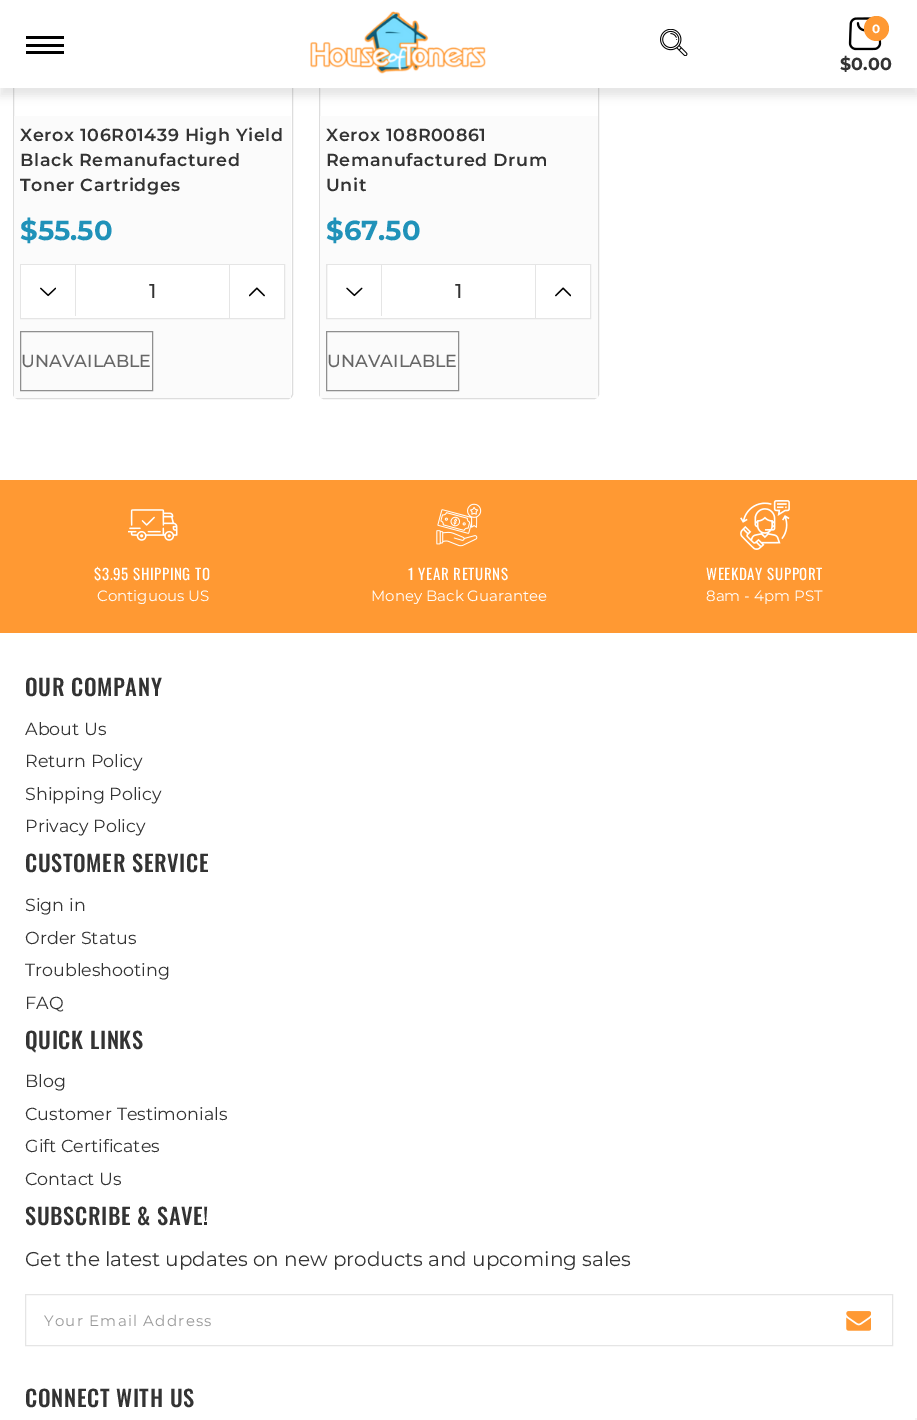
%!PS
<< /PageSize [917 1420] /PageUsesTransparency true >> setpagedevice
/rgb { 3 { 255 div 3 1 roll } repeat setrgbcolor } def
/font { [ exch dup neg 0 0 3 -1 roll 0 0 ] selectfont } def
/text { moveto show } def
/alpha { dup .setfillconstantalpha .setstrokeconstantalpha } def
/circle { newpath 0 360 arc closepath } def
/roundrect { 5 dict begin { /r /h /w /y /x } { exch def } forall
  x r add y moveto x w add y 2 copy h add r arct x w add y h add x 1 index r arct
  x y h add x y r arct x y 2 copy exch w add exch r arct closepath end } def
/shadow { 12 dict begin { /a /b /q /h /w /y /x } { exch def } forall gsave /was 0 def
  9 -2 -9 { dup b mul 4 div /e exch def 1 sub .425 mul 2.718 exch exp 1 add a .99 .min exch div /now exch def
    1 1 now sub 1 was sub div sub alpha /was now def
    w h .min e 2 mul add 0 gt { x e sub y e sub w e 2 mul add h e 2 mul add
      q e add b .6 mul add w h .min 2 div e add .min 0 .max roundrect fill } if } for grestore end } def
/picture { 5 dict begin { /h /w /y /x /name } { exch def } forall
  gsave x y translate w h scale
  w h 8 [w 0 0 h 0 0] name (r) file false 3 colorimage grestore end } def
0 .pushpdf14devicefilter
0 1420 translate 1 -1 scale
4 setmiterlimit
255 255 255 rgb
0 0 917 1420 rectfill
221 221 221 rgb
13.5 -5.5 279 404 4.5 roundrect stroke
319.5 -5.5 279 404 4.5 roundrect stroke
0 0 0 rgb
0 9 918 87 0 4.5 0.1 shadow
255 255 255 rgb
0 0 917 88 rectfill
0 0 0 rgb
26 36 38 3 rectfill
26 44 38 3 rectfill
26 51 38 3 rectfill
(img_01.rgb) 310 11 176 63 picture
(img_02.rgb) 660 29 28 27 picture
(img_03.rgb) 848 17 34 34 picture
255 153 51 rgb
876.5 28.5 12.5 circle fill
251 251 251 rgb
14 116 277 282 rectfill
229 229 229 rgb
20.5 264.5 264 54 rectstroke
255 255 255 rgb
21 265 263 53 rectfill
229 229 229 rgb
75 265 1 51 rectfill
(img_04.rgb) 40 287 16 10 picture
229 265 1 54 rectfill
(img_05.rgb) 249 287 16 10 picture
143 143 143 rgb
20.5 331.5 132 59 rectstroke
251 251 251 rgb
320 116 278 282 rectfill
229 229 229 rgb
326.5 264.5 264 54 rectstroke
255 255 255 rgb
328 265 262 53 rectfill
229 229 229 rgb
381 265 1 51 rectfill
(img_06.rgb) 346 287 17 10 picture
535 265 1 54 rectfill
(img_07.rgb) 555 287 16 10 picture
143 143 143 rgb
326.5 331.5 132 59 rectstroke
255 153 51 rgb
0 480 917 153 rectfill
(img_08.rgb) 128 509 50 32 picture
(img_09.rgb) 436 503 46 44 picture
(img_10.rgb) 740 500 50 50 picture
229 229 229 rgb
25.5 1294.5 867 51 rectstroke
(img_11.rgb) 846 1311 25 20 picture
245 245 245 rgb
915 1418 2 2 rectfill
/Montserrat-Bold 12 font
255 255 255 rgb
(0) 872 33 text
/Montserrat-Bold 17.5 font
51 51 51 rgb
($0.00) 840 70 text
/Montserrat-SemiBold 17.5 font
20 141 moveto 0.6 0 (Xerox 106R01439 High Yield) ashow
20 166 moveto 0.6 0 (Black Remanufactured) ashow
20 191 moveto 0.6 0 (Toner Cartridges) ashow
/Montserrat-Bold 27.5 font
32 146 185 rgb
($55.50) 20 240 text
/Montserrat-Medium 20 font
51 51 51 rgb
(1) 149 298 text
/Montserrat-Medium 17.5 font
102 102 102 rgb
(UNAVAILABLE) 21 367 text
/Montserrat-SemiBold 17.5 font
51 51 51 rgb
326 141 moveto 0.6 0 (Xerox 108R00861) ashow
326 166 moveto 0.6 0 (Remanufactured Drum) ashow
326 191 moveto 0.6 0 (Unit) ashow
/Montserrat-Bold 27.5 font
32 146 185 rgb
($67.50) 326 240 text
/Montserrat-Medium 20 font
51 51 51 rgb
(1) 455 298 text
/Montserrat-Medium 17.5 font
102 102 102 rgb
(UNAVAILABLE) 327 367 text
/Oswald-Regular 15 font
255 255 255 rgb
94 580 moveto 0.6 0 ($3.95 SHIPPING TO) ashow
/Montserrat-Regular 15 font
(Contiguous US) 97 601 text
/Oswald-Regular 15 font
408 580 moveto 0.6 0 (1 YEAR RETURNS) ashow
/Montserrat-Regular 15 font
(Money Back Guarantee) 371 601 text
/Oswald-Regular 15 font
706 580 moveto 0.6 0 (WEEKDAY SUPPORT) ashow
/Montserrat-Regular 15 font
(8am - 4pm PST) 706 601 text
/Oswald-Medium 22.5 font
51 51 51 rgb
25 696 moveto 0.6 0 (OUR COMPANY) ashow
/Montserrat-Regular 17.5 font
(About Us) 25 735 text
(Return Policy) 25 767 text
(Shipping Policy) 25 800 text
(Privacy Policy) 25 832 text
/Oswald-Medium 22.5 font
25 872 moveto 0.6 0 (CUSTOMER SERVICE) ashow
/Montserrat-Regular 17.5 font
(Sign in) 25 911 text
(Order Status) 25 944 text
(Troubleshooting) 25 976 text
(FAQ) 25 1009 text
/Oswald-Medium 22.5 font
25 1049 moveto 0.6 0 (QUICK LINKS) ashow
/Montserrat-Regular 17.5 font
(Blog) 25 1087 text
(Customer Testimonials) 25 1120 text
(Gift Certificates) 25 1152 text
(Contact Us) 25 1185 text
/Oswald-Medium 22.5 font
25 1225 moveto 0.6 0 (SUBSCRIBE & SAVE!) ashow
/Montserrat-Regular 20 font
(Get the latest updates on new products and upcoming sales) 25 1266 text
/Montserrat-Regular 15 font
153 153 153 rgb
44 1326 moveto 1.25 0 (Your Email Address) ashow
/Oswald-Medium 22.5 font
51 51 51 rgb
25 1407 moveto 0.6 0 (CONNECT WITH US) ashow
.poppdf14devicefilter showpage
